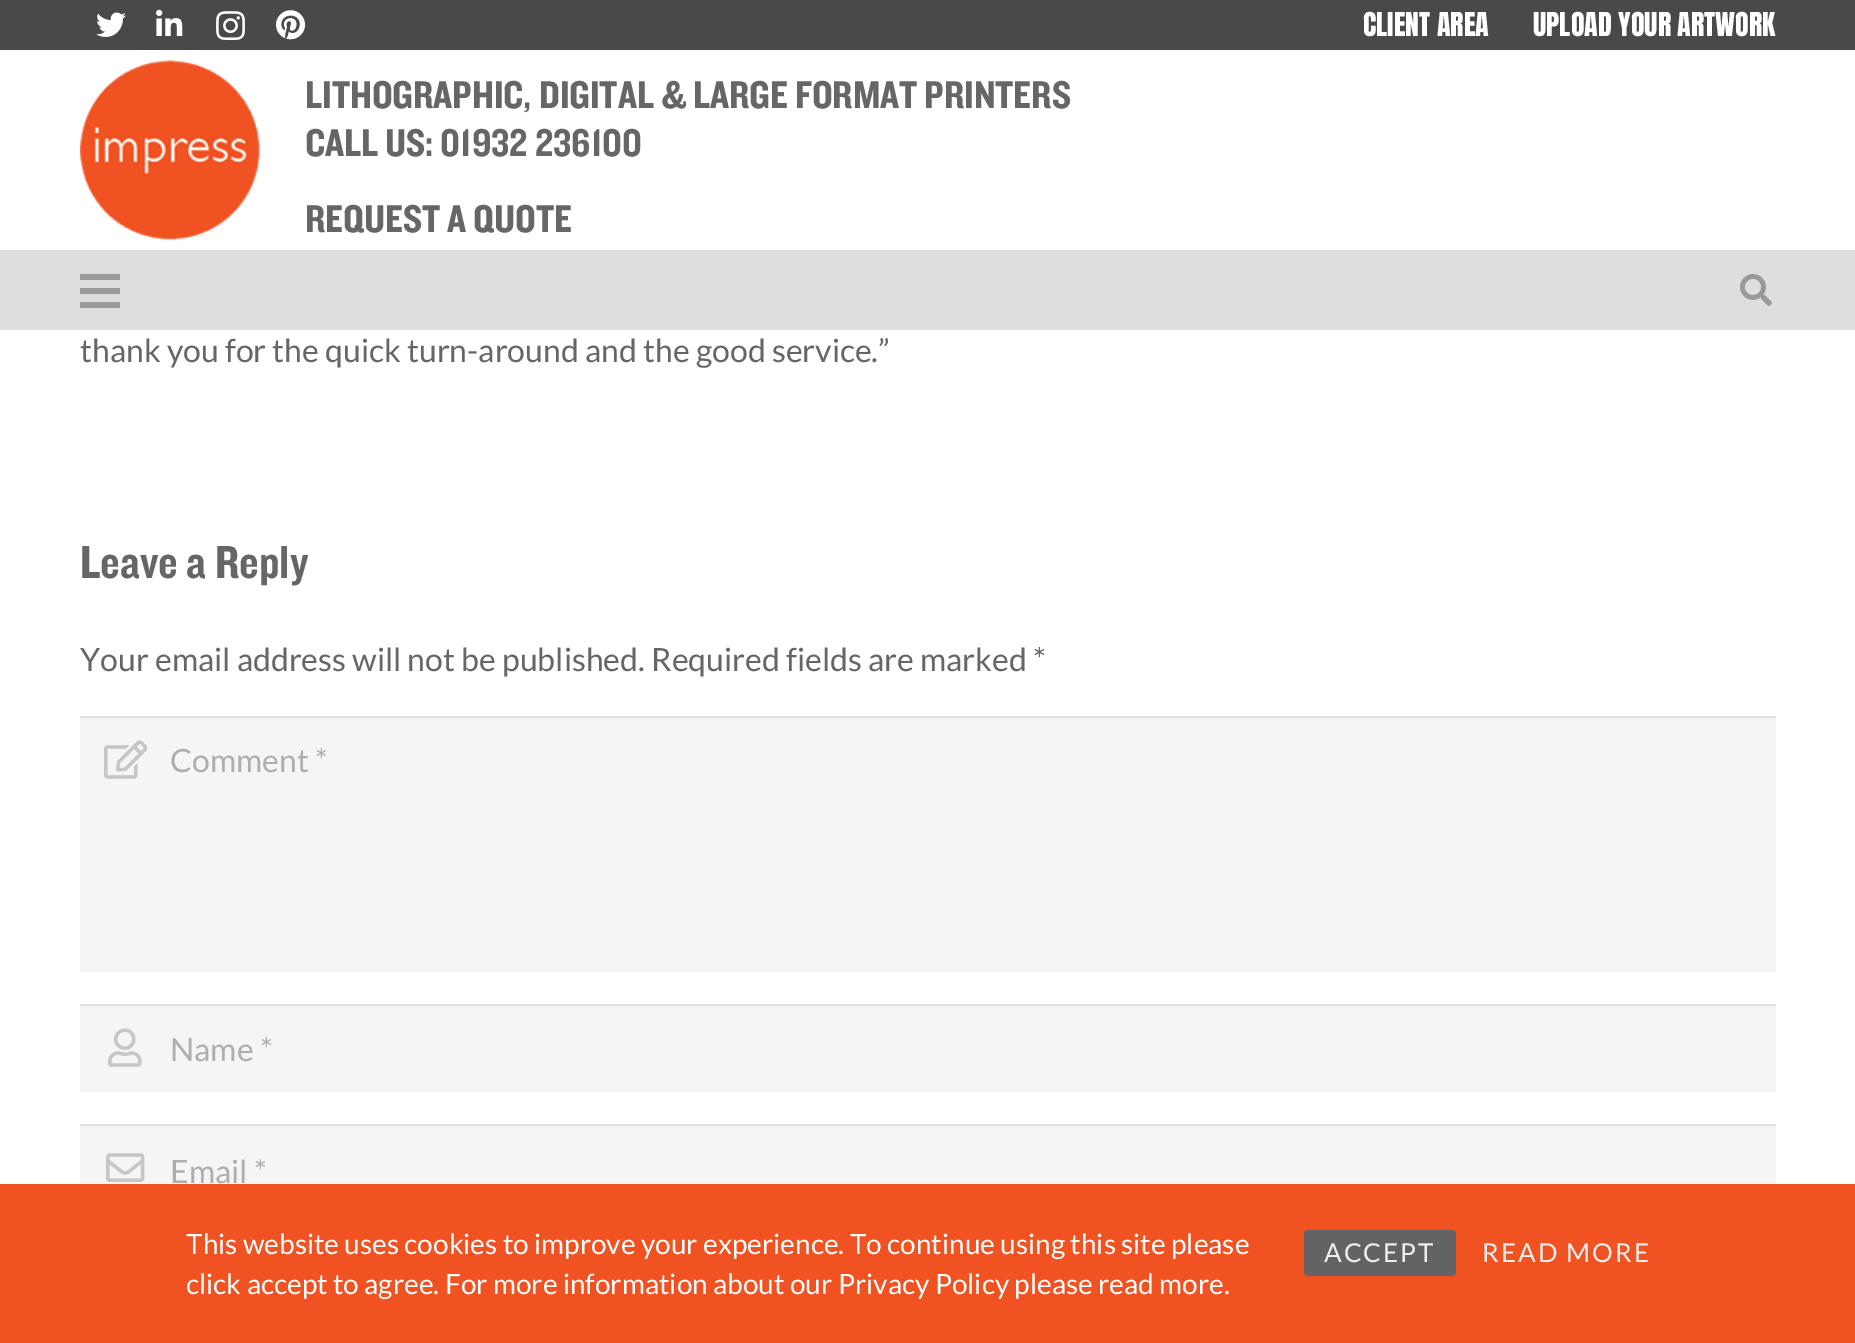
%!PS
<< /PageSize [1855 1343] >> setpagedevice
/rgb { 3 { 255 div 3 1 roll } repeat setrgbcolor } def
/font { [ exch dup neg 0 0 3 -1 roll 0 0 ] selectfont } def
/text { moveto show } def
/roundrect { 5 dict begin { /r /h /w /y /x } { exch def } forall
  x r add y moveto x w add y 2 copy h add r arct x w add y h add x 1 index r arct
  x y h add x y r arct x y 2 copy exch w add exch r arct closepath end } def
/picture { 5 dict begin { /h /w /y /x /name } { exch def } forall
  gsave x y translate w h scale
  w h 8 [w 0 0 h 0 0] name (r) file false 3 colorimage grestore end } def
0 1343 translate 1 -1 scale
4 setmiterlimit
255 255 255 rgb
0 0 1855 1343 rectfill
73 73 73 rgb
0 0 1855 50 rectfill
(img_01.rgb) 96 12 30 25 picture
(img_02.rgb) 156 9 27 27 picture
(img_03.rgb) 216 11 29 30 picture
(img_04.rgb) 276 10 30 30 picture
(img_05.rgb) 80 60 180 180 picture
222 222 222 rgb
0 250 1855 80 rectfill
153 153 153 rgb
80 288 40 6 rectfill
80 274 40 6 rectfill
80 302 40 6 rectfill
(img_06.rgb) 1740 274 32 32 picture
245 245 245 rgb
80 718 1696 254 rectfill
(img_07.rgb) 104 740 44 39 picture
225 225 225 rgb
80 716 1696 2 rectfill
245 245 245 rgb
80 1006 1696 86 rectfill
(img_08.rgb) 108 1028 34 39 picture
225 225 225 rgb
80 1004 1696 2 rectfill
245 245 245 rgb
80 1126 1696 58 rectfill
(img_09.rgb) 106 1153 39 29 picture
225 225 225 rgb
80 1124 1696 2 rectfill
240 82 34 rgb
0 1184 1855 159 rectfill
99 99 99 rgb
1304 1230 152 46 4 roundrect fill
/Anton-Regular 28 font
255 255 255 rgb
(CLIENT AREA) 1363 36 text
(UPLOAD YOUR ARTWORK) 1533 36 text
/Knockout-Regular 40 font
102 102 102 rgb
(LITHOGRAPHIC, DIGITAL & LARGE FORMAT PRINTERS) 305 108 text
(CALL US: 01932 236100) 305 156 text
(REQUEST A QUOTE) 305 232 text
/Lato-Regular 32 font
(thank you for the quick turn-around and the good service.”) 80 362 text
/Knockout-Regular 48 font
(Leave a Reply) 80 578 text
/Lato-Regular 32 font
(Your email address will not be published. Required fields are marked *) 80 671 text
174 174 174 rgb
(Comment *) 170 772 text
(Name *) 170 1061 text
(Email *) 170 1183 text
/Lato-Regular 28 font
255 255 255 rgb
(This website uses cookies to improve your experience. To continue using this site please) 186 1254 text
(click accept to agree. For more information about our Privacy Policy please read more.) 186 1294 text
/Lato-Regular 26 font
239 239 239 rgb
1324 1262 moveto 2 0 (ACCEPT) ashow
1482 1262 moveto 2 0 (READ MORE) ashow
showpage
